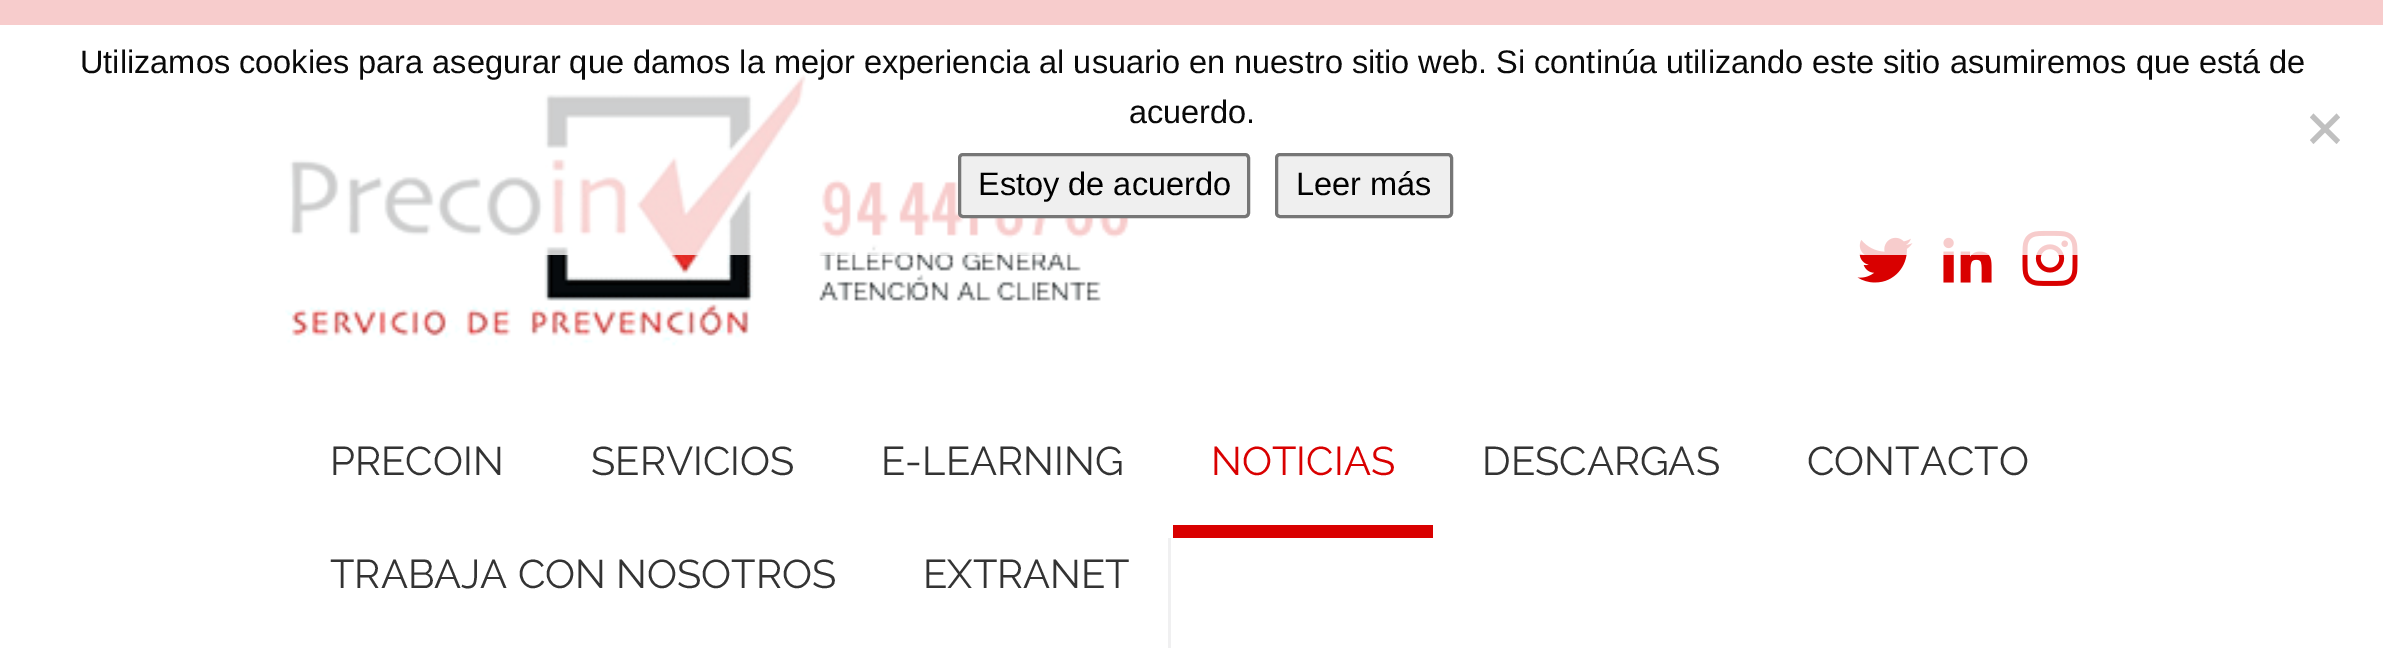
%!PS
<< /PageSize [2383 648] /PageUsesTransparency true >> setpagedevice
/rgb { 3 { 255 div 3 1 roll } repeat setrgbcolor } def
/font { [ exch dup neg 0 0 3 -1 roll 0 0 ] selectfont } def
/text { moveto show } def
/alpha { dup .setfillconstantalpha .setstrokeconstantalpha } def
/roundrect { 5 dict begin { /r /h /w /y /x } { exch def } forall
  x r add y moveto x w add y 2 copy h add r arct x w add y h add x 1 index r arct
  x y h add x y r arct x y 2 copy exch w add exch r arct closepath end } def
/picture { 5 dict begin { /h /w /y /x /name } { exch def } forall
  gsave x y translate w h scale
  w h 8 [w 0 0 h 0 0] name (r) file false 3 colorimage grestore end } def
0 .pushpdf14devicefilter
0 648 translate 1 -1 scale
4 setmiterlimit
217 0 0 rgb
0 0 2383 648 rectfill
255 255 255 rgb
0 25 2383 623 rectfill
(img_01.rgb) 285 68 844 278 picture
(img_02.rgb) 1857 237 56 46 picture
(img_03.rgb) 1943 237 49 46 picture
(img_04.rgb) 2022 230 56 56 picture
0.8 alpha
0 0 2383 255 rectfill
1 alpha
192 192 192 rgb
2336.5 113.5 moveto 3.5 4 rlineto -26.5 26.5 rlineto -3.5 -4 rlineto closepath fill
2310 117.5 moveto 3.5 -4 rlineto 26.5 26.5 rlineto -3.5 4 rlineto closepath fill
239 239 239 rgb
959.5 154.5 289 62 3.5 roundrect gsave fill grestore
118 118 118 rgb
3 setlinewidth
stroke
239 239 239 rgb
1276.5 154.5 175 62 3.5 roundrect gsave fill grestore
118 118 118 rgb
stroke
217 0 0 rgb
1173 525 260 13 rectfill
240 240 241 rgb
1168 538 3 110 rectfill
/LiberationSans-Regular 32.5 font
10 10 10 rgb
(Utilizamos cookies para asegurar que damos la mejor experiencia al usuario en nuestro sitio web. Si continúa utilizando este sitio asumiremos que está de) 80 73 text
(acuerdo.) 1129 123 text
0 0 0 rgb
(Estoy de acuerdo) 978 195 text
(Leer más) 1296 195 text
/Raleway-Regular 40 font
51 51 51 rgb
(PRECOIN) 330 475 text
(SERVICIOS) 591 475 text
(E-LEARNING) 881 475 text
217 0 0 rgb
(NOTICIAS) 1211 475 text
51 51 51 rgb
(DESCARGAS) 1482 475 text
(CONTACTO) 1807 475 text
(TRABAJA CON NOSOTROS) 330 588 text
(EXTRANET) 923 588 text
.poppdf14devicefilter showpage
